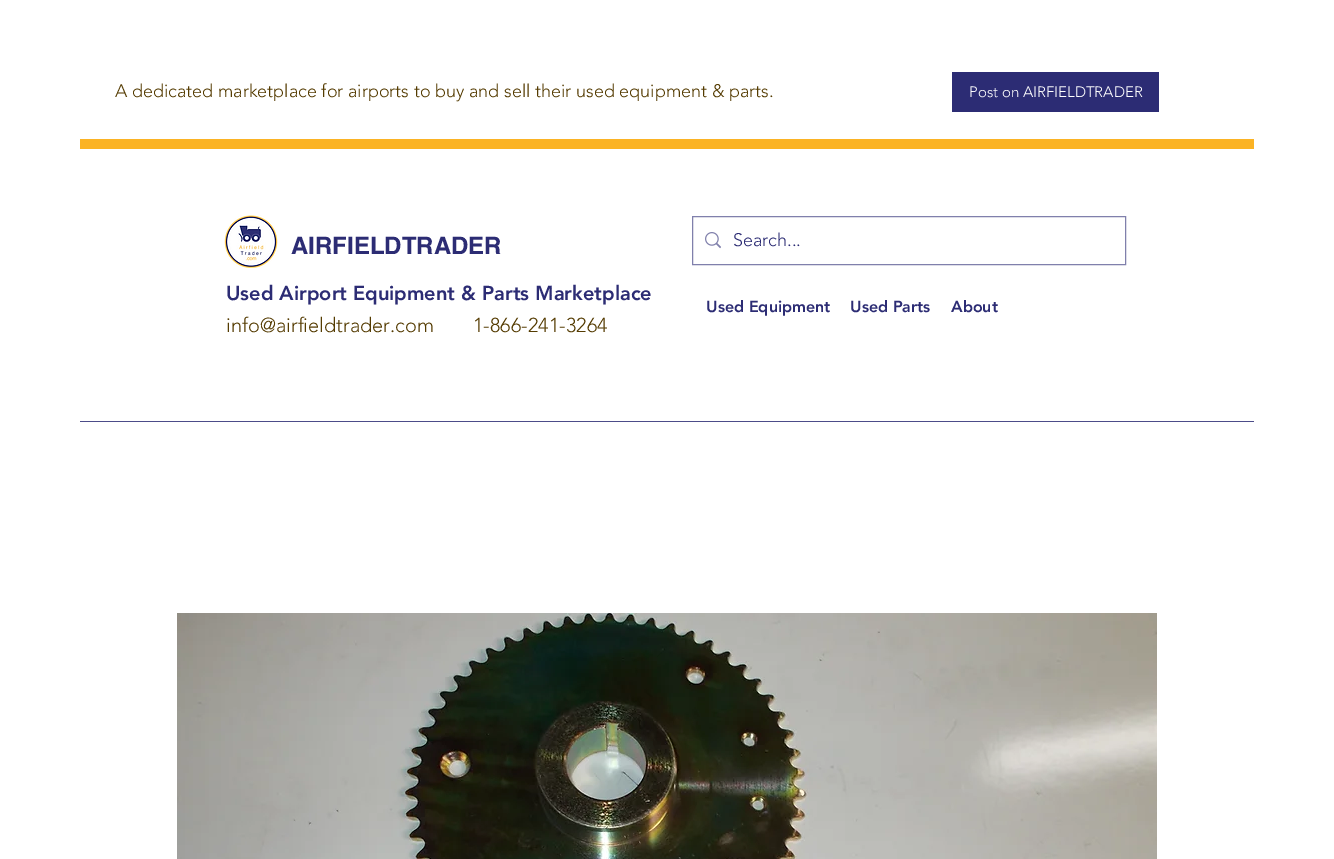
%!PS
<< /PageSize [1334 859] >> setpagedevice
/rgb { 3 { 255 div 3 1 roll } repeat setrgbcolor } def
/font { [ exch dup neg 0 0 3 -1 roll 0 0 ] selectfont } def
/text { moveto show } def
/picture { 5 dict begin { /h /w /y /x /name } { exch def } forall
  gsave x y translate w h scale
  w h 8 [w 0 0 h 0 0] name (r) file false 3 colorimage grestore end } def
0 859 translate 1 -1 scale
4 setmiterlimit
255 255 255 rgb
0 0 1334 859 rectfill
44 44 116 rgb
952 72 207 40 rectfill
251 179 36 rgb
80 139 1174 10 rectfill
(img_01.rgb) 224 215 54 53 picture
128 128 172 rgb
692.5 216.5 433 48 rectstroke
(img_02.rgb) 705 232 16 17 picture
76 76 137 rgb
80 421 1174 1 rectfill
(img_03.rgb) 177 613 980 246 picture
/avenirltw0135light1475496-Light 18 font
85 60 2 rgb
(A dedicated marketplace for airports to buy and sell their used equipment & parts.) 115 97 text
/avenirltw0135light1475496-Light 15 font
255 255 255 rgb
(Post on AIRFIELDTRADER) 969 97 text
/helvetica-Bold 24 font
44 44 116 rgb
(AIRFIELDTRADER) 291 254 text
/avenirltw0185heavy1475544-Black 20 font
(Used Airport Equipment & Parts Marketplace) 226 300 text
/avenirltw0135light1475496-Light 20 font
85 60 2 rgb
(info@airfieldtrader.com) 226 332 text
(1-866-241-3264) 473 332 text
/avenirltw0135light1475496-Light 18 font
44 44 116 rgb
(Search...) 733 246 text
/avenirltw0185heavy1475544-Black 16 font
(Used Equipment) 706 312 text
(Used Parts) 850 312 text
(About) 951 312 text
showpage
